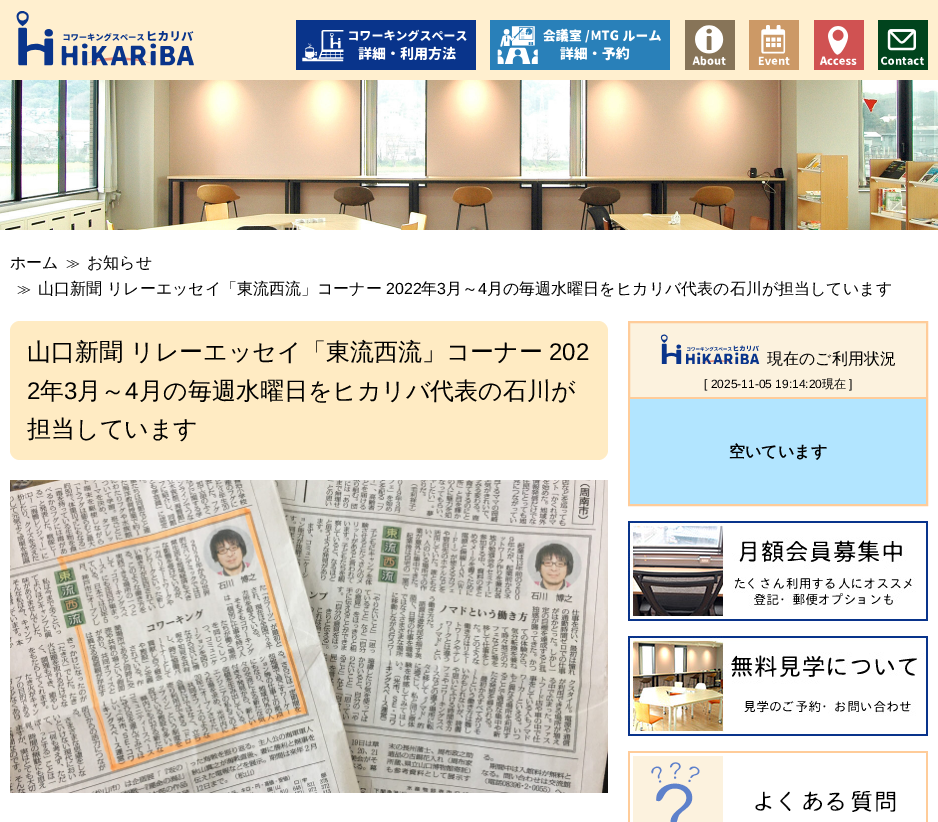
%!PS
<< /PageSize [938 822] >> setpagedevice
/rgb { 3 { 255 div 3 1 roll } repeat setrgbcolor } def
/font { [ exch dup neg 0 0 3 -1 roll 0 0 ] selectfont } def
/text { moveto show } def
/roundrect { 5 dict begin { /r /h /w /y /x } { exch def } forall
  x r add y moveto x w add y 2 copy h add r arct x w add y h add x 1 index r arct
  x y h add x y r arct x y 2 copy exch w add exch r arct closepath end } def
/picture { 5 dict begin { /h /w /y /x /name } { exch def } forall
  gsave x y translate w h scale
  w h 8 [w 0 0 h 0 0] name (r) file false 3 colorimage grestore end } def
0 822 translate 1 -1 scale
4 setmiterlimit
255 255 255 rgb
0 0 938 822 rectfill
255 239 207 rgb
0 0 938 80 rectfill
(img_01.rgb) 16 11 178 55 picture
9 52 139 rgb
296 20 180 50 rectfill
(img_02.rgb) 302 29 165 33 picture
41 128 185 rgb
490 20 180 50 rectfill
(img_03.rgb) 497 26 164 38 picture
135 116 88 rgb
685 20 50 50 rectfill
(img_04.rgb) 692 25 34 41 picture
204 153 102 rgb
749 20 50 50 rectfill
(img_05.rgb) 758 25 32 40 picture
208 82 82 rgb
814 20 50 50 rectfill
(img_06.rgb) 819 26 38 39 picture
1 68 29 rgb
878 20 50 50 rectfill
(img_07.rgb) 881 29 43 36 picture
(img_08.rgb) 0 80 938 150 picture
255 235 195 rgb
10 321 598 139 10 roundrect fill
(img_09.rgb) 10 480 598 313 picture
252 242 222 rgb
630 323 296 74 rectfill
255 204 153 rgb
2 setlinewidth
629 322 298 183 rectstroke
(img_10.rgb) 660 334 100 30 picture
630 397 296 2 rectfill
178 229 255 rgb
630 399 296 105 rectfill
(img_11.rgb) 628 521 300 100 picture
(img_12.rgb) 628 636 300 100 picture
(img_13.rgb) 628 751 300 71 picture
/WenQuanYiZenHei-Medium 16 font
0 0 0 rgb
(ホーム) 10 268 text
/WenQuanYiZenHei-Medium 14 font
(≫) 66 268 text
/WenQuanYiZenHei-Medium 16 font
(お知らせ) 87 268 text
/WenQuanYiZenHei-Medium 14 font
(≫) 17 294 text
/WenQuanYiZenHei-Medium 16 font
(山口新聞 リレーエッセイ「東流西流」コーナー) 38 294 text
/LiberationSans-Regular 16 font
(2022) 386 294 text
/WenQuanYiZenHei-Medium 16 font
(年) 421 294 text
/LiberationSans-Regular 16 font
(3) 437 294 text
/WenQuanYiZenHei-Medium 16 font
(月～) 446 294 text
/LiberationSans-Regular 16 font
(4) 478 294 text
/WenQuanYiZenHei-Medium 16 font
(月の毎週水曜日をヒカリバ代表の石川が担当しています) 487 294 text
/WenQuanYiZenHei-Medium 24 font
(山口新聞 リレーエッセイ「東流西流」コーナー) 27 360 text
/LiberationSans-Regular 24 font
(202) 549 360 text
(2) 27 399 text
/WenQuanYiZenHei-Medium 24 font
(年) 40 399 text
/LiberationSans-Regular 24 font
(3) 64 399 text
/WenQuanYiZenHei-Medium 24 font
(月～) 77 399 text
/LiberationSans-Regular 24 font
(4) 125 399 text
/WenQuanYiZenHei-Medium 24 font
(月の毎週水曜日をヒカリバ代表の石川が) 139 399 text
(担当しています) 27 437 text
/WenQuanYiZenHei-Medium 16 font
(現在のご利用状況) 767 364 text
/LiberationSans-Regular 12 font
([ 2025-11-05 19:14:20) 704 388 text
/WenQuanYiZenHei-Medium 12 font
(現在) 822 388 text
/LiberationSans-Regular 12 font
(]) 849 388 text
/WenQuanYiZenHei-Bold 16 font
(空いています) 729 457 text
showpage
